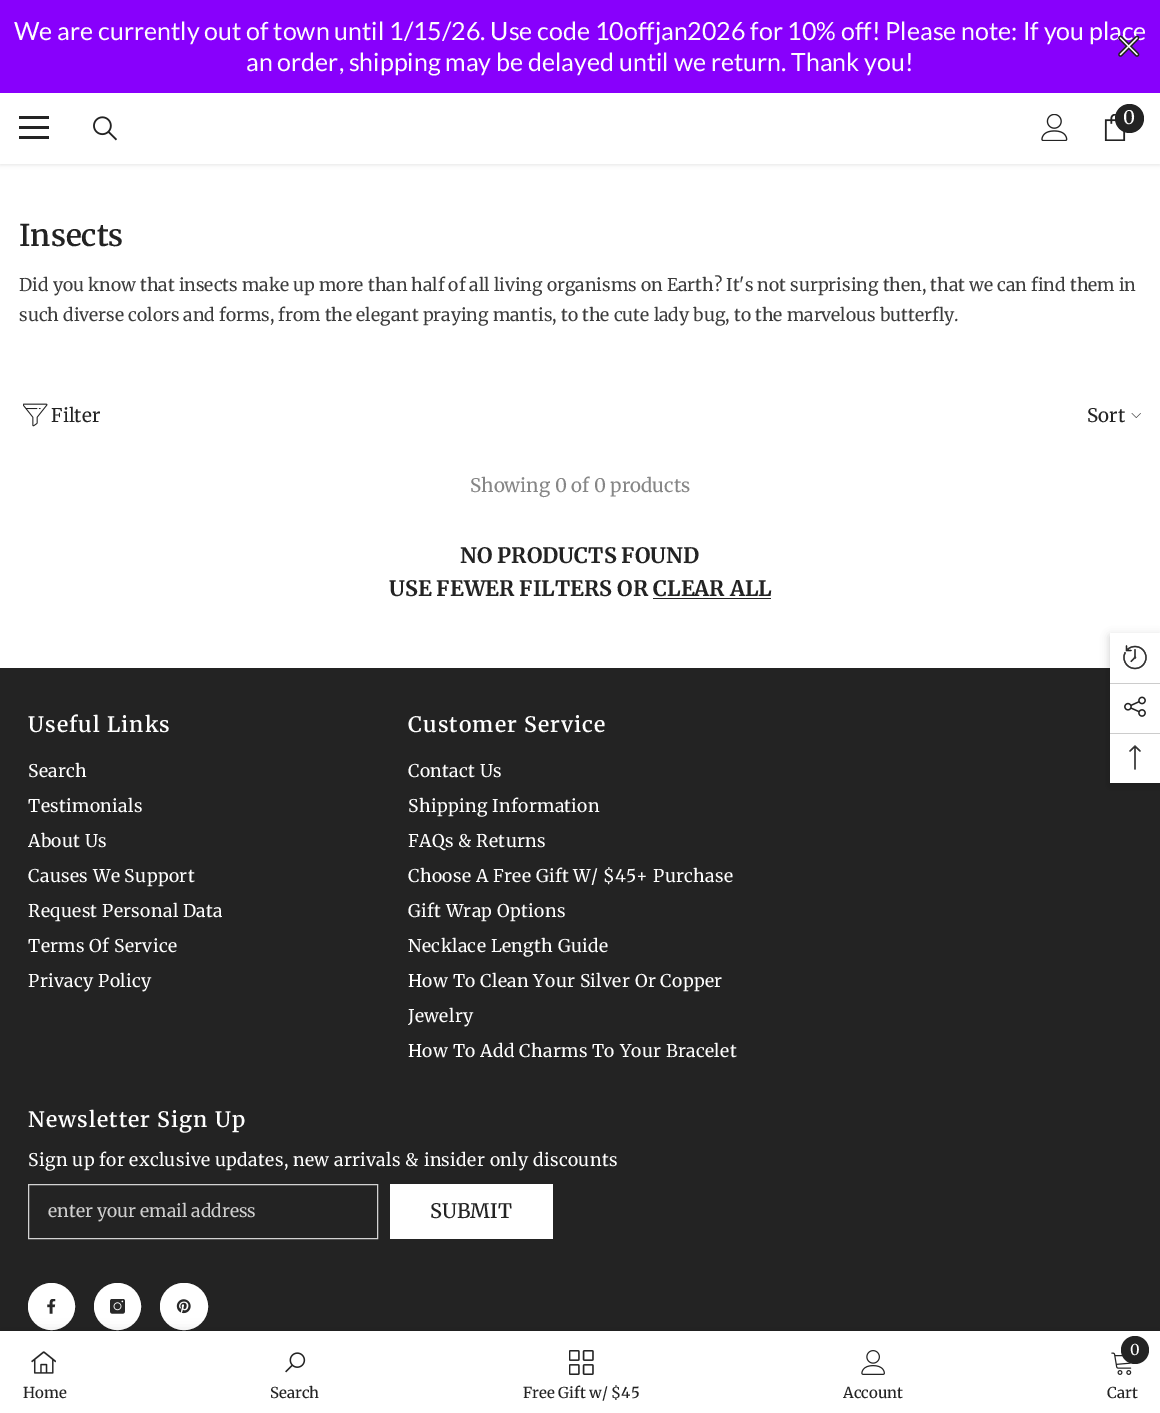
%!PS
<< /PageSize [1160 1413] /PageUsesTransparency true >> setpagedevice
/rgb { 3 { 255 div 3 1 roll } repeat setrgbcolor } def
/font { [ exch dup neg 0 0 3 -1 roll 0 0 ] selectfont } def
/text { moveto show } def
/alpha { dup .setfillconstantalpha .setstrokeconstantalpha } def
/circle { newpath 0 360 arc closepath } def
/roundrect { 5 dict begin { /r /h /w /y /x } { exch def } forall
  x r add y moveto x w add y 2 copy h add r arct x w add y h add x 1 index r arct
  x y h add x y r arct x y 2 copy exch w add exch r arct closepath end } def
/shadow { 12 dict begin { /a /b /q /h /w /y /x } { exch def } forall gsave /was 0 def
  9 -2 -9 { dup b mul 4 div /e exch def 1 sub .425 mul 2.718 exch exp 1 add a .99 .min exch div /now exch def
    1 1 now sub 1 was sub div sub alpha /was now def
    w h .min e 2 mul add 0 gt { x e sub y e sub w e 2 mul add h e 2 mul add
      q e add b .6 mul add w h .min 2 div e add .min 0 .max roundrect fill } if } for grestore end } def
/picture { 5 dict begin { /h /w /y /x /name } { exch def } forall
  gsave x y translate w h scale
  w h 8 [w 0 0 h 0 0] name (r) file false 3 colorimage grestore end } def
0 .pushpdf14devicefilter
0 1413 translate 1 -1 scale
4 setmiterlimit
255 255 255 rgb
0 0 1160 1413 rectfill
0 0 0 rgb
0 93 1160 72 0 2 0.1 shadow
136 0 252 rgb
0 0 1160 93 rectfill
255 255 255 rgb
0 93 1160 71 rectfill
35 35 35 rgb
19 126 30 3 rectfill
19 116 30 3 rectfill
19 136 30 3 rectfill
(img_02.rgb) 93 116 24 25 picture
(img_03.rgb) 1041 114 27 27 picture
(img_04.rgb) 1104 114 22 27 picture
1129.5 118.5 14.5 circle fill
(img_05.rgb) 23 403 25 24 picture
(img_06.rgb) 1131 413 10 5 picture
653 598 118 1 rectfill
0 668 1160 663 rectfill
211 211 211 rgb
28.5 1184.5 349 54 rectstroke
255 255 255 rgb
390 1184 163 55 rectfill
51.5 1306.5 23 circle gsave fill grestore
stroke
(img_07.rgb) 47 1299 9 15 picture
117.5 1306.5 23 circle gsave fill grestore
stroke
(img_08.rgb) 110 1299 15 15 picture
160.5 1283.5 47 46 23 roundrect gsave fill grestore
stroke
(img_09.rgb) 176 1299 15 15 picture
0 0 0 rgb
0 1331 1160 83 0 5.5 0.12 shadow
255 255 255 rgb
0 1331 1160 82 rectfill
(img_10.rgb) 31 1351 25 23 picture
(img_11.rgb) 285 1352 21 21 picture
(img_12.rgb) 569 1350 25 25 picture
(img_13.rgb) 861 1350 24 25 picture
(img_14.rgb) 1111 1352 21 23 picture
35 35 35 rgb
1135 1350 14 circle fill
0 0 0 rgb
1110 636 50 150 0 4.5 0.2 shadow
255 255 255 rgb
1110 633 50 150 rectfill
(img_15.rgb) 1123 645 24 25 picture
204 204 204 rgb
1110 683 50 1 rectfill
(img_16.rgb) 1124 696 22 21 picture
1110 733 50 1 rectfill
(img_17.rgb) 1129 745 12 25 picture
/Lato-Regular 25 font
254 254 254 rgb
(We are currently out of town until 1/15/26. Use code 10offjan2026 for 10% off! Please note: If you place) 14 40 text
(an order, shipping may be delayed until we return. Thank you!) 246 71 text
(img_01.rgb) 1118 35 22 22 picture
/Merriweather-Regular 18.75 font
(0) 1123 124 text
/Merriweather-SemiBold 30 font
35 35 35 rgb
(Insects) 19 246 text
/Merriweather-Regular 17.5 font
60 60 60 rgb
(Did you know that insects make up more than half of all living organisms on Earth? It's not surprising then, that we can find them in) 19 291 text
(such diverse colors and forms, from the elegant praying mantis, to the cute lady bug, to the marvelous butterfly.) 19 321 text
/Merriweather-Regular 18.75 font
35 35 35 rgb
(Filter) 51 422 text
(Sort) 1087 422 text
134 134 134 rgb
(Showing 0 of 0 products) 470 492 text
/Merriweather-Bold 21.25 font
35 35 35 rgb
(NO PRODUCTS FOUND) 460 563 text
(USE FEWER FILTERS OR CLEAR ALL) 389 596 text
/Merriweather-SemiBold 21.25 font
254 254 254 rgb
28 732 moveto 1.1 0 (Useful Links) ashow
/Merriweather-Regular 17.5 font
28 777 moveto 0.35 0 (Search) ashow
28 812 moveto 0.35 0 (Testimonials) ashow
28 847 moveto 0.35 0 (About Us) ashow
28 882 moveto 0.35 0 (Causes We Support) ashow
28 917 moveto 0.35 0 (Request Personal Data) ashow
28 952 moveto 0.35 0 (Terms Of Service) ashow
28 987 moveto 0.35 0 (Privacy Policy) ashow
/Merriweather-SemiBold 21.25 font
408 732 moveto 1.1 0 (Customer Service) ashow
/Merriweather-Regular 17.5 font
408 777 moveto 0.35 0 (Contact Us) ashow
408 812 moveto 0.35 0 (Shipping Information) ashow
408 847 moveto 0.35 0 (FAQs & Returns) ashow
408 882 moveto 0.35 0 (Choose A Free Gift W/ $45+ Purchase) ashow
408 917 moveto 0.35 0 (Gift Wrap Options) ashow
408 952 moveto 0.35 0 (Necklace Length Guide) ashow
408 987 moveto 0.35 0 (How To Clean Your Silver Or Copper) ashow
408 1022 moveto 0.35 0 (Jewelry) ashow
408 1057 moveto 0.35 0 (How To Add Charms To Your Bracelet) ashow
/Merriweather-SemiBold 21.25 font
28 1127 moveto 1.1 0 (Newsletter Sign Up) ashow
/Merriweather-Regular 17.5 font
28 1166 moveto 0.35 0 (Sign up for exclusive updates, new arrivals & insider only discounts) ashow
207 207 207 rgb
(enter your email address) 48 1217 text
/Merriweather-Medium 20 font
35 35 35 rgb
(SUBMIT) 430 1218 text
/Merriweather-Medium 15 font
(Home) 23 1398 text
(Search) 270 1398 text
(Free Gift w/ $45) 523 1398 text
(Account) 843 1398 text
254 254 254 rgb
(0) 1130 1355 text
35 35 35 rgb
(Cart) 1107 1398 text
.poppdf14devicefilter showpage
